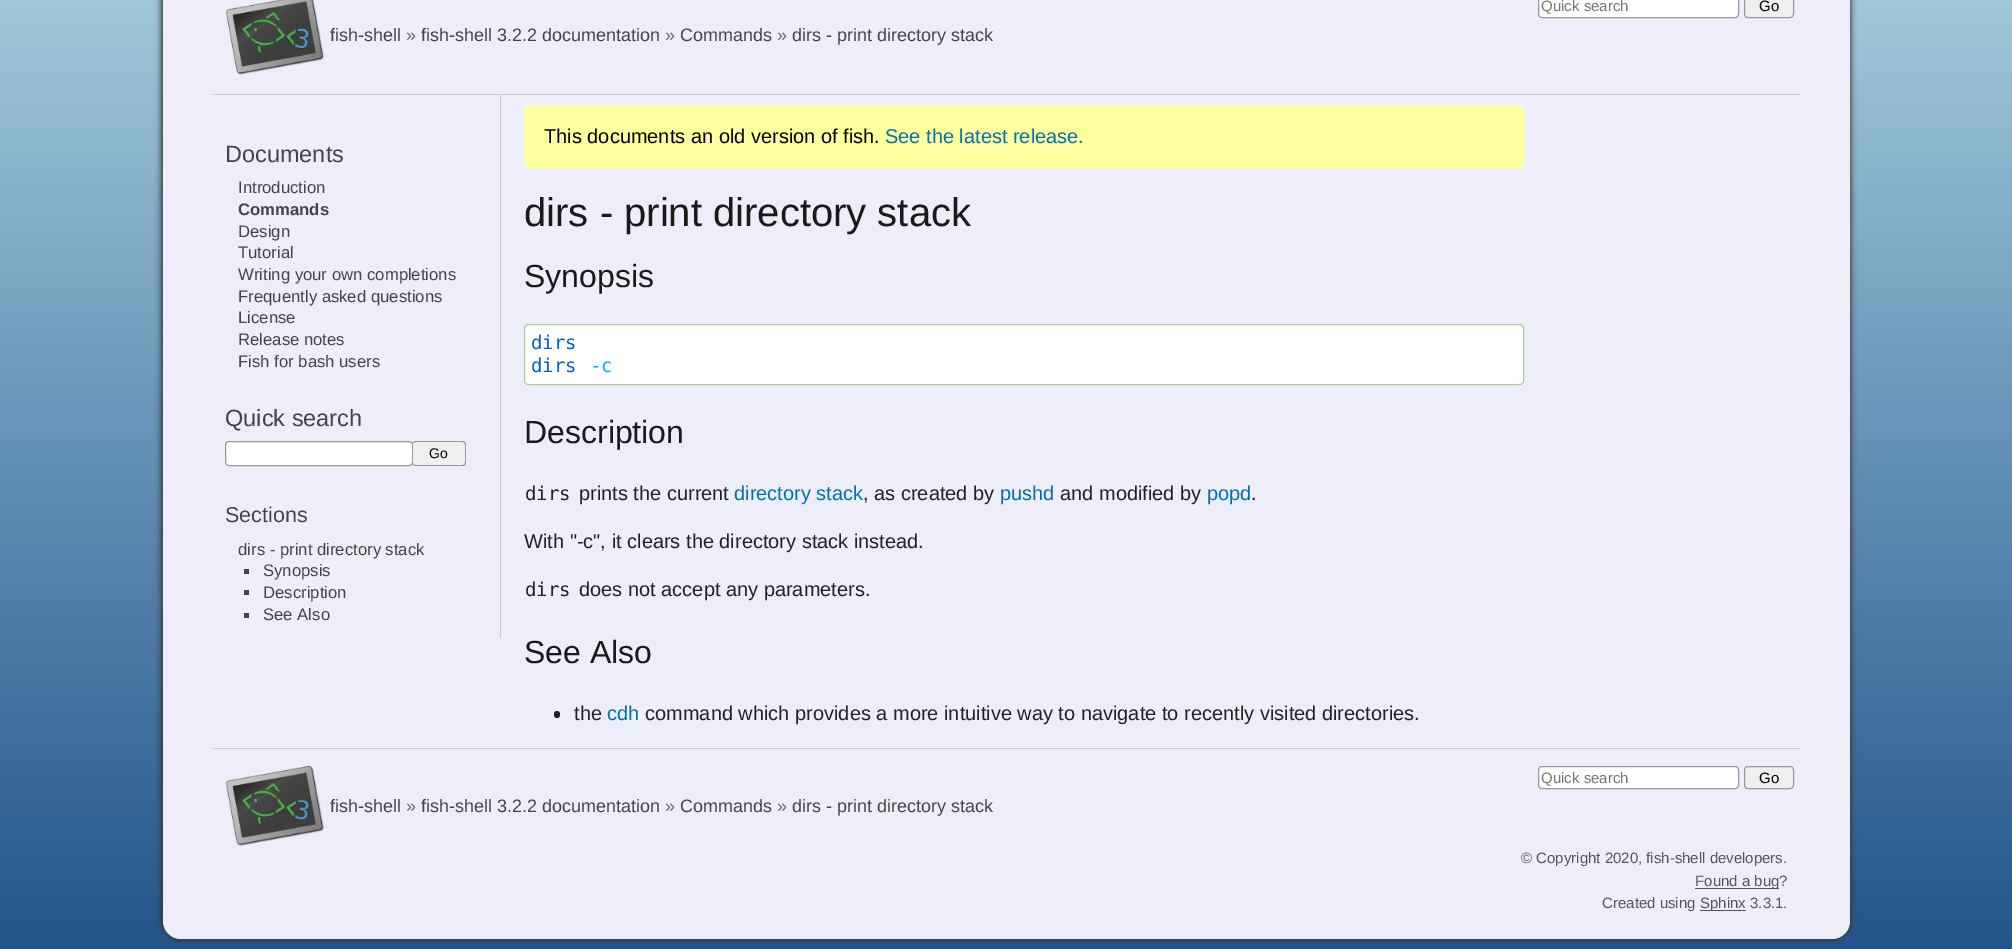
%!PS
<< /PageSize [2012 949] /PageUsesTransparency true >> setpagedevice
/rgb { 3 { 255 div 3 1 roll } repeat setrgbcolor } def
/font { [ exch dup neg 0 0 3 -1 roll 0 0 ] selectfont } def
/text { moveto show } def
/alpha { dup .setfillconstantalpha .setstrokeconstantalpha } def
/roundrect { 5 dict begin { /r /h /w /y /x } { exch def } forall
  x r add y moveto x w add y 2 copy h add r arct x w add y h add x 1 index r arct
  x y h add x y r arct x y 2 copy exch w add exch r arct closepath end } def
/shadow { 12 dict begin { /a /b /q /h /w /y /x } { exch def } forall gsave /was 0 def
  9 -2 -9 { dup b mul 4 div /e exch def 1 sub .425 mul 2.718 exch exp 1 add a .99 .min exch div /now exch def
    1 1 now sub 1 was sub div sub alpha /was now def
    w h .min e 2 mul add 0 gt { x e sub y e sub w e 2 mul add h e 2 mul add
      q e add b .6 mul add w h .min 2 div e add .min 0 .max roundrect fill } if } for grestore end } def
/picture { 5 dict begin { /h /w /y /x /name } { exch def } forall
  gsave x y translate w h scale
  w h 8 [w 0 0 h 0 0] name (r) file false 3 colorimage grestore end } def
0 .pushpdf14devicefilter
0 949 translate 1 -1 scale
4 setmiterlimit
255 255 255 rgb
0 0 2012 949 rectfill
gsave 0 0 moveto 2012 0 rlineto 0 949 rlineto -2012 0 rlineto closepath clip newpath
<< /ShadingType 2 /ColorSpace /DeviceRGB /Coords [1006 -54 1006 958] /Extend [true true] /Function << /FunctionType 2 /Domain [0 1] /C0 [0.655 0.812 0.875] /C1 [0.137 0.325 0.541] /N 1 >> >> shfill grestore
51 51 51 rgb
161 -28 1690 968 19 3 1 shadow
238 238 250 rgb
163 -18 1687 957 18 roundrect fill
204 204 204 rgb
213 94 1587 1 rectfill
(img_01.rgb) 225 0 100 85 picture
255 255 255 rgb
1538.5 -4.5 200 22 3.5 roundrect gsave fill grestore
153 153 153 rgb
stroke
239 239 239 rgb
1744.5 -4.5 49 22 3.5 roundrect gsave fill grestore
153 153 153 rgb
stroke
204 204 204 rgb
500 95 1 543 rectfill
255 255 255 rgb
225.5 441.5 187 24 3.5 roundrect gsave fill grestore
153 153 153 rgb
stroke
239 239 239 rgb
413 441 53 25 4 roundrect fill
153 153 153 rgb
416 441 moveto 46 0 rlineto 3 0 4 2 4 4 rcurveto 0 17 rlineto 0 3 -1 4 -4 4 rcurveto -46 0 rlineto -2 0 -4 -1 -4 -4 rcurveto 0 -17 rlineto 0 -2 2 -4 4 -4 rcurveto closepath 416 442 moveto 46 0 rlineto 2 0 3 2 3 3 rcurveto 0 17 rlineto 0 2 -1 3 -3 3 rcurveto -46 0 rlineto -2 0 -4 -1 -4 -3 rcurveto 0 -17 rlineto 0 -1 2 -3 4 -3 rcurveto closepath eofill
68 68 68 rgb
244 569 5 5 rectfill
244 590 5 5 rectfill
244 613 5 5 rectfill
255 255 160 rgb
524 105 1000 63 6 roundrect fill
255 255 255 rgb
524 324 1000 61 rectfill
170 204 153 rgb
524.5 324.5 999 60 3.5 roundrect stroke
34 34 34 rgb
554 711 6 7 3 roundrect fill
204 204 204 rgb
213 748 1587 1 rectfill
(img_02.rgb) 225 756 100 100 picture
255 255 255 rgb
1538.5 766.5 200 22 3.5 roundrect gsave fill grestore
153 153 153 rgb
stroke
239 239 239 rgb
1744.5 766.5 49 22 3.5 roundrect gsave fill grestore
153 153 153 rgb
stroke
85 85 85 rgb
1695 888 84 1 rectfill
1700 910 46 1 rectfill
/LiberationSans-Regular 15 font
117 117 117 rgb
(Quick search) 1541 11 text
0 0 0 rgb
(Go) 1759 11 text
/LiberationSans-Regular 18 font
68 68 68 rgb
(fish-shell) 330 41 text
102 102 102 rgb
(») 406 41 text
68 68 68 rgb
(fish-shell 3.2.2 documentation) 421 41 text
102 102 102 rgb
(») 665 41 text
68 68 68 rgb
(Commands) 680 41 text
102 102 102 rgb
(») 777 41 text
68 68 68 rgb
(dirs - print directory stack) 792 41 text
/LiberationSans-Regular 23.5 font
(Documents) 225 162 text
/LiberationSans-Regular 16.7 font
(Introduction) 238 193 text
/LiberationSans-Bold 16.7 font
(Commands) 238 215 text
/LiberationSans-Regular 16.7 font
(Design) 238 237 text
(Tutorial) 238 258 text
(Writing your own completions) 238 280 text
(Frequently asked questions) 238 302 text
(License) 238 323 text
(Release notes) 238 345 text
(Fish for bash users) 238 367 text
/LiberationSans-Regular 23.5 font
(Quick search) 225 426 text
/LiberationSans-Regular 14 font
0 0 0 rgb
(Go) 429 458 text
/LiberationSans-Regular 21.5 font
68 68 68 rgb
(Sections) 225 522 text
/LiberationSans-Regular 16.7 font
(dirs - print directory stack) 238 555 text
(Synopsis) 263 576 text
(Description) 263 598 text
(See Also) 263 620 text
/LiberationSans-Regular 20 font
0 0 0 rgb
(This documents an old version of fish.) 544 143 text
0 114 170 rgb
(See the latest release.) 885 143 text
/LiberationSans-Regular 40 font
26 26 26 rgb
(dirs - print directory stack) 524 226 text
/LiberationSans-Regular 32 font
(Synopsis) 524 287 text
/DejaVuSansMono-Regular 19 font
0 95 215 rgb
(dirs) 531 349 text
(dirs) 531 372 text
0 175 255 rgb
(-c) 590 372 text
/LiberationSans-Regular 32 font
26 26 26 rgb
(Description) 524 443 text
/DejaVuSansMono-Regular 19 font
34 34 34 rgb
(dirs) 525 500 text
/LiberationSans-Regular 20 font
(prints the current) 579 500 text
0 114 170 rgb
(directory stack) 734 500 text
34 34 34 rgb
(, as created by) 863 500 text
0 114 170 rgb
(pushd) 1000 500 text
34 34 34 rgb
(and modified by) 1060 500 text
0 114 170 rgb
(popd) 1207 500 text
34 34 34 rgb
(.) 1251 500 text
(With "-c", it clears the directory stack instead.) 524 548 text
/DejaVuSansMono-Regular 19 font
(dirs) 525 596 text
/LiberationSans-Regular 20 font
(does not accept any parameters.) 579 596 text
/LiberationSans-Regular 32 font
26 26 26 rgb
(See Also) 524 663 text
/LiberationSans-Regular 20 font
34 34 34 rgb
(the) 574 720 text
0 114 170 rgb
(cdh) 607 720 text
34 34 34 rgb
(command which provides a more intuitive way to navigate to recently visited directories.) 645 720 text
/LiberationSans-Regular 15 font
117 117 117 rgb
(Quick search) 1541 783 text
0 0 0 rgb
(Go) 1759 783 text
/LiberationSans-Regular 18 font
68 68 68 rgb
(fish-shell) 330 812 text
102 102 102 rgb
(») 406 812 text
68 68 68 rgb
(fish-shell 3.2.2 documentation) 421 812 text
102 102 102 rgb
(») 665 812 text
68 68 68 rgb
(Commands) 680 812 text
102 102 102 rgb
(») 777 812 text
68 68 68 rgb
(dirs - print directory stack) 792 812 text
/LiberationSans-Regular 15 font
85 85 85 rgb
(© Copyright 2020, fish-shell developers.) 1521 863 text
(Found a bug?) 1695 886 text
(Created using) 1602 908 text
(Sphinx 3.3.1.) 1700 908 text
.poppdf14devicefilter showpage
